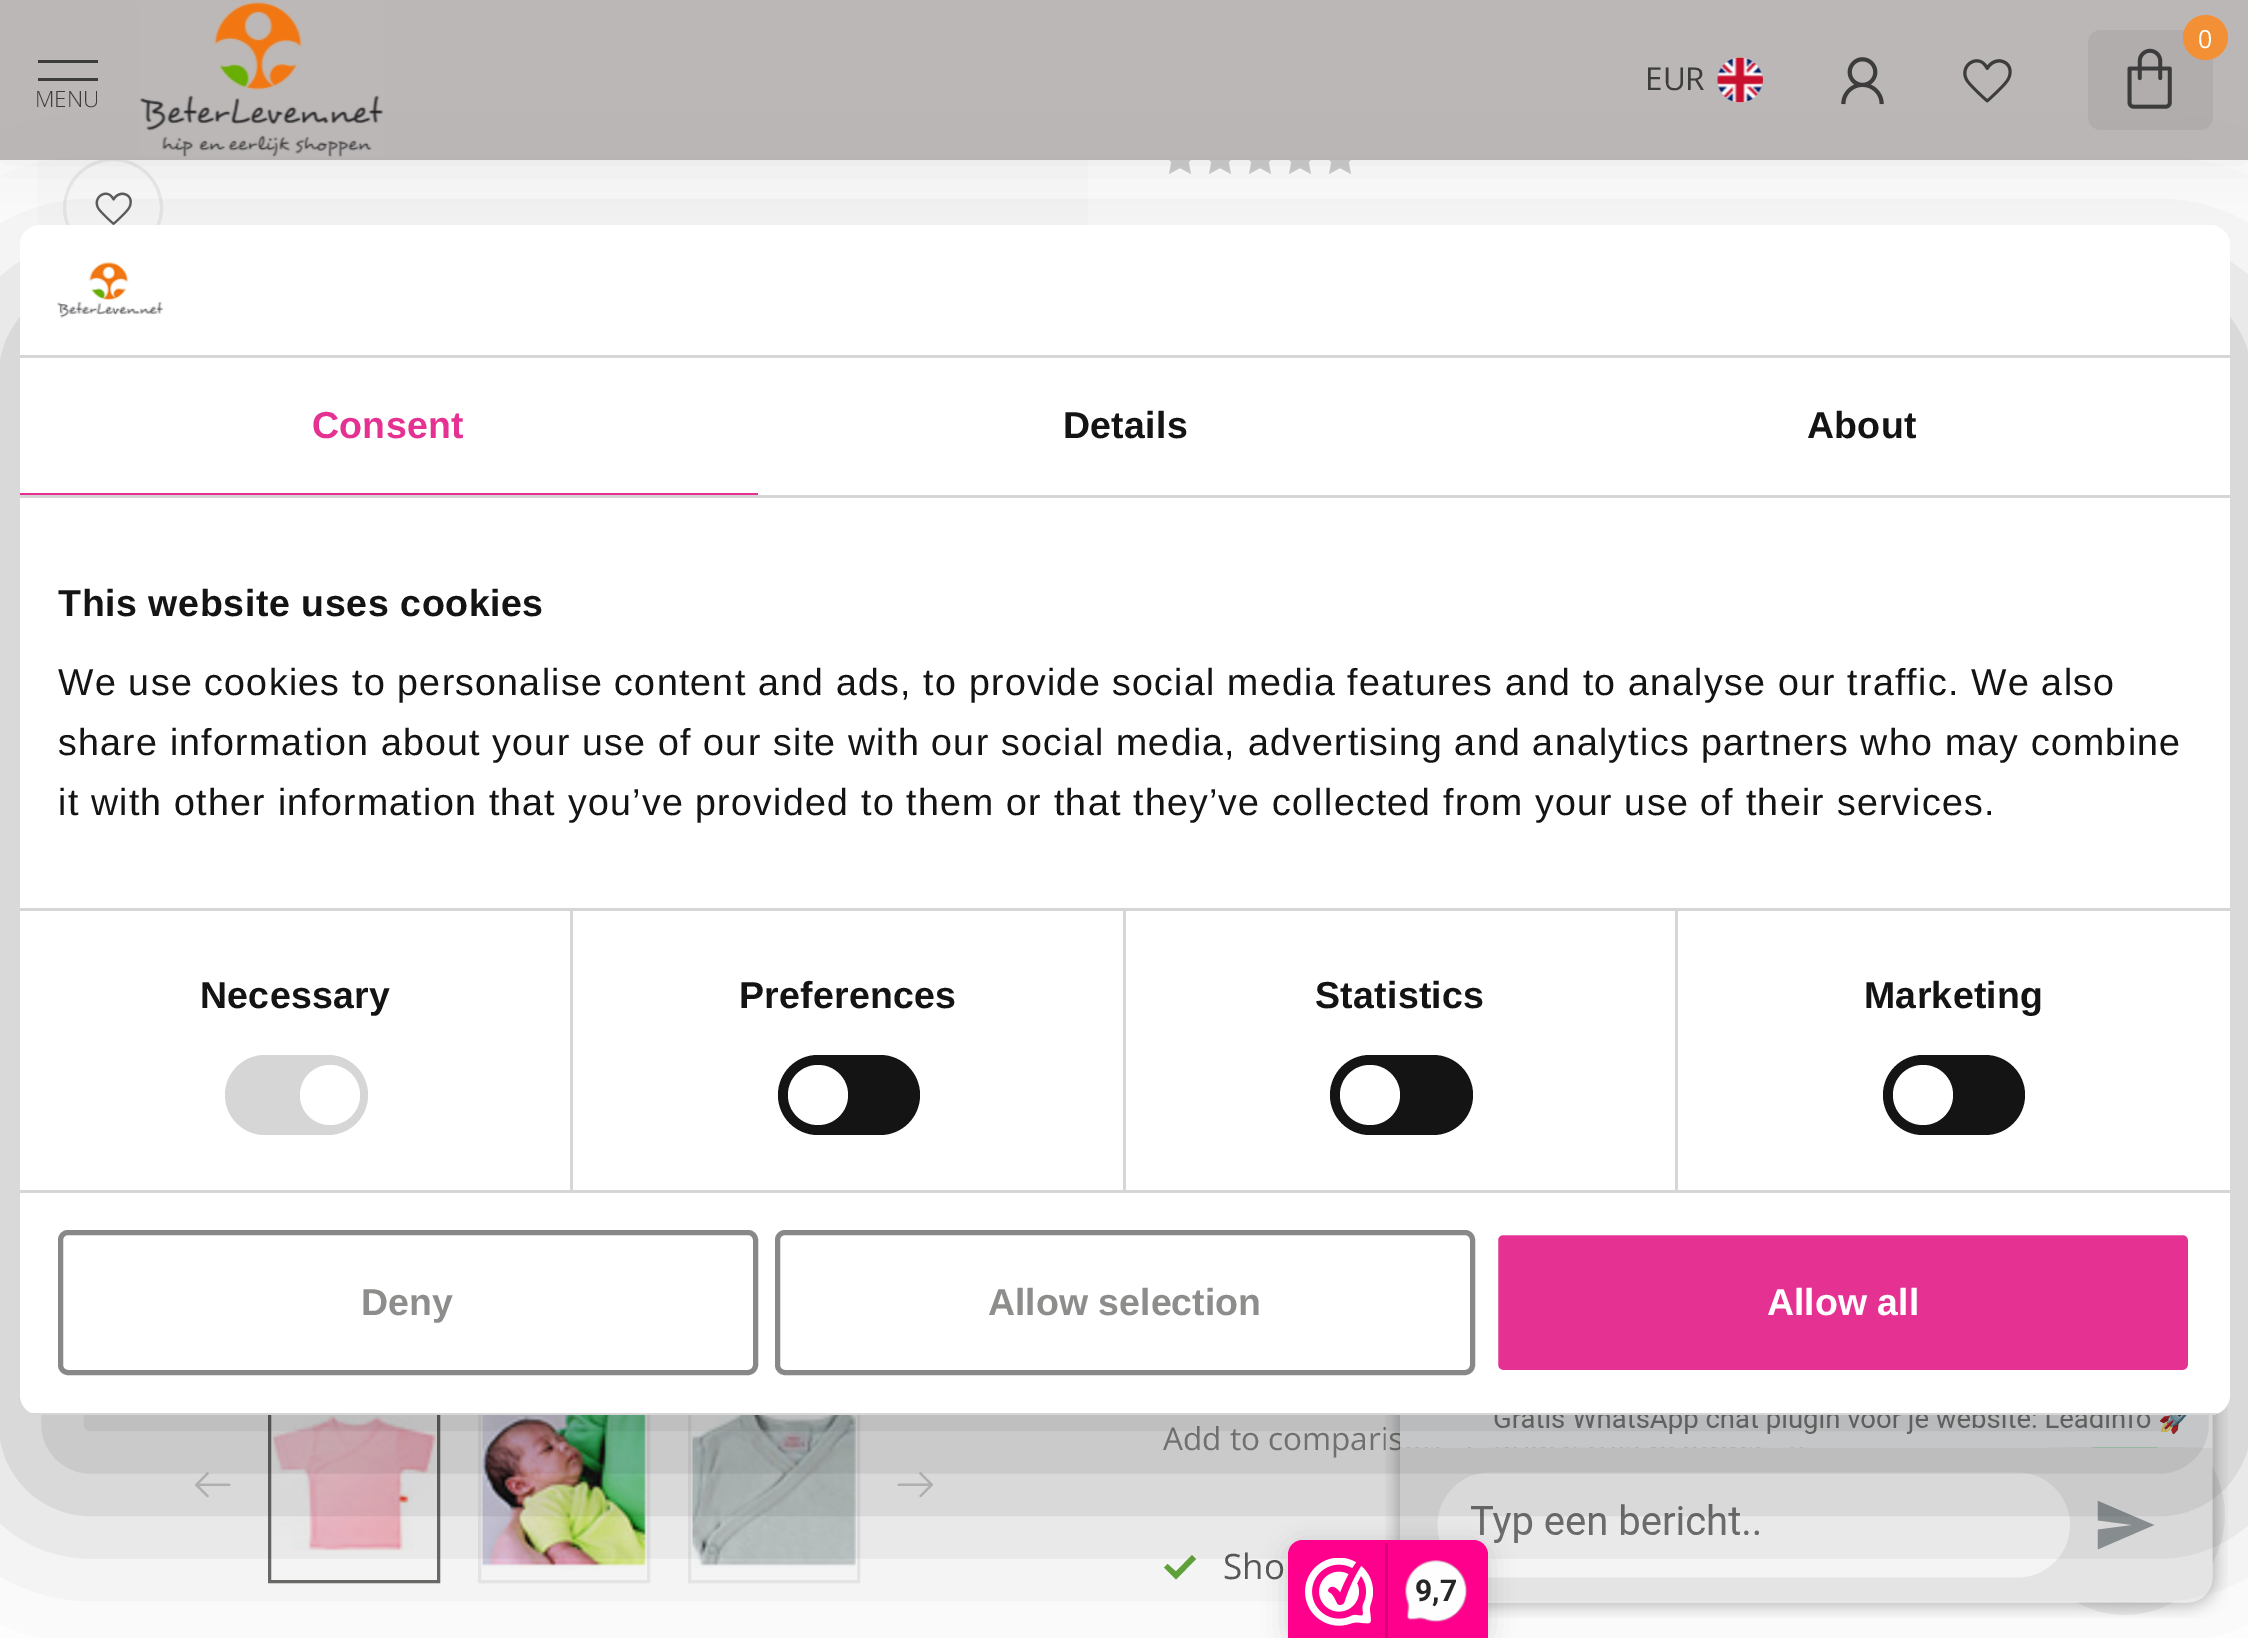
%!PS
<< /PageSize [2248 1638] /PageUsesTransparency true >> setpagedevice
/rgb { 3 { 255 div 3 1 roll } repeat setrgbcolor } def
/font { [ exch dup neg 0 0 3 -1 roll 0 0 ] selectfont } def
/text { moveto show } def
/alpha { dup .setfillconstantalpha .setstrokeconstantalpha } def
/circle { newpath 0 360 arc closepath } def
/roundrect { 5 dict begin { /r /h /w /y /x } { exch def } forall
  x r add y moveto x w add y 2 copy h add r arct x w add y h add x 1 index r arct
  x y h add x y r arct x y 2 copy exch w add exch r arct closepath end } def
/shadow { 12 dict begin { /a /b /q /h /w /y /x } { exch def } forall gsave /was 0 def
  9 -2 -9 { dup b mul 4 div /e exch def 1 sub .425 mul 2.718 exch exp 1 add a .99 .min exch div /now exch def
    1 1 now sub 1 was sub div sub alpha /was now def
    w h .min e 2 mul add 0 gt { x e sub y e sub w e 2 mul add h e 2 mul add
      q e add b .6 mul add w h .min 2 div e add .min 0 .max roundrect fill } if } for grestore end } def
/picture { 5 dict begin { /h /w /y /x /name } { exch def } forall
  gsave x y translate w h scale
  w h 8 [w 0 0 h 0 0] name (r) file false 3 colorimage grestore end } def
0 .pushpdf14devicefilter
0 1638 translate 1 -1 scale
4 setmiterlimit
255 255 255 rgb
0 0 2248 1638 rectfill
252 252 252 rgb
38 160 1050 66 rectfill
236 236 236 rgb
3 setlinewidth
113 208 48.5 circle stroke
(img_07.rgb) 95 192 37 33 picture
206 206 206 rgb
1180 140.5 moveto 5.5 11 rlineto 12 2 rlineto -9 8.5 rlineto 2.5 12 rlineto -11 -6 rlineto -11 6 rlineto 2.5 -12 rlineto -9 -8.5 rlineto 12 -2 rlineto closepath fill
1220 140.5 moveto 5.5 11 rlineto 12 2 rlineto -9 8.5 rlineto 2.5 12 rlineto -11 -6 rlineto -11 6 rlineto 2.5 -12 rlineto -9 -8.5 rlineto 12 -2 rlineto closepath fill
1260 140.5 moveto 5.5 11 rlineto 12 2 rlineto -9 8.5 rlineto 2.5 12 rlineto -11 -6 rlineto -11 6 rlineto 2.5 -12 rlineto -9 -8.5 rlineto 12 -2 rlineto closepath fill
1300 140.5 moveto 5.5 11 rlineto 12 2 rlineto -9 8.5 rlineto 2.5 12 rlineto -11 -6 rlineto -11 6 rlineto 2.5 -12 rlineto -9 -8.5 rlineto 12 -2 rlineto closepath fill
1340 140.5 moveto 5.5 11 rlineto 12 2 rlineto -9 8.5 rlineto 2.5 12 rlineto -11 -6 rlineto -11 6 rlineto 2.5 -12 rlineto -9 -8.5 rlineto 12 -2 rlineto closepath fill
0 0 0 rgb
0 -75 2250 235 0 25 0.07 shadow
188 183 183 rgb
0 0 2248 160 rectfill
177 173 173 rgb
2088 30 125 100 13 roundrect fill
243 144 54 rgb
2205.5 37.5 22.5 circle fill
(img_01.rgb) 2127 48 45 61 picture
(img_02.rgb) 1717 57 46 46 picture
(img_03.rgb) 1841 57 43 48 picture
(img_04.rgb) 1963 59 49 44 picture
61 60 60 rgb
38 60 60 3 rectfill
38 78 60 3 rectfill
(img_05.rgb) 139 2 245 155 picture
(img_08.rgb) 195 1472 36 26 picture
108 108 106 rgb
269.5 1386.5 169 195 rectstroke
(img_09.rgb) 273 1415 163 136 picture
238 238 238 rgb
479.5 1386.5 169 195 rectstroke
(img_10.rgb) 482 1415 164 154 picture
689.5 1386.5 169 195 rectstroke
(img_11.rgb) 692 1415 164 154 picture
(img_12.rgb) 897 1472 36 26 picture
(img_13.rgb) 1791 1447 12 1 picture
100 167 60 rgb
1176 1579.5 moveto -12 -12 rlineto 3.5 -3.5 rlineto 8.5 7.5 rlineto 16 -16.5 rlineto 4 4 rlineto closepath fill
(img_15.rgb) 2051 1447 174 168 picture
/OpenSans-Regular 25 font
255 255 255 rgb
(0) 2198 48 text
/OpenSans-Regular 31.5 font
61 60 60 rgb
(EUR) 1645 90 text
/OpenSans-Light 22.5 font
(MENU) 35 107 text
/OpenSans-Regular 31.5 font
141 141 140 rgb
(Add to comparis) 1163 1450 text
/OpenSans-Regular 35 font
92 92 90 rgb
(Sho) 1223 1579 text
(img_14.rgb) 1385 1403 843 215 picture
0 0 0 rgb
20 305 2210 1190 20 85 0.3 shadow
255 255 255 rgb
20 225 2210 1190 20 roundrect fill
229 50 146 rgb
1495.5 1232.5 695 140 7.5 roundrect gsave fill grestore
255 255 255 rgb
5 setlinewidth
stroke
/LiberationSans-Bold 37.5 font
(Allow all) 1767 1315 text
136 136 136 rgb
777.5 1232.5 695 140 7.5 roundrect stroke
141 141 140 rgb
(Allow selection) 988 1315 text
136 136 136 rgb
60.5 1232.5 695 140 7.5 roundrect stroke
141 141 140 rgb
(Deny) 361 1315 text
gsave
20 225 2210 1190 20 roundrect clip newpath
214 214 214 rgb
31 1413 2188 2 rectfill
grestore
20 20 20 rgb
1883 1055 142 80 40 roundrect fill
255 255 255 rgb
1923 1095 30 circle fill
20 20 20 rgb
1330 1055 143 80 40 roundrect fill
255 255 255 rgb
1370 1095 30 circle fill
20 20 20 rgb
778 1055 142 80 40 roundrect fill
255 255 255 rgb
818 1095 30 circle fill
214 214 214 rgb
225 1055 143 80 40 roundrect fill
255 255 255 rgb
330 1095 30 circle fill
/LiberationSans-Regular 37.5 font
20 20 20 rgb
58 815 moveto 1.25 0 (it with other information that you’ve provided to them or that they’ve collected from your use of their services.) ashow
58 755 moveto 1.25 0 (share information about your use of our site with our social media, advertising and analytics partners who may combine) ashow
58 695 moveto 1.25 0 (We use cookies to personalise content and ads, to provide social media features and to analyse our traffic. We also) ashow
/LiberationSans-Bold 37.5 font
58 616 moveto 0.6 0 (This website uses cookies) ashow
214 214 214 rgb
1675 910 3 280 rectfill
1123 910 3 280 rectfill
570 910 3 280 rectfill
20 908 2210 3 rectfill
20 20 20 rgb
1807 438 moveto 0.25 0 (About) ashow
1063 438 moveto 0.25 0 (Details) ashow
229 50 146 rgb
312 438 moveto 0.25 0 (Consent) ashow
20 493 738 2 rectfill
214 214 214 rgb
20 495 2210 3 rectfill
20 20 20 rgb
1864 1008 moveto 0.25 0 (Marketing) ashow
1315 1008 moveto 0.25 0 (Statistics) ashow
739 1008 moveto 0.25 0 (Preferences) ashow
200 1008 moveto 0.25 0 (Necessary) ashow
214 214 214 rgb
20 1190 2210 3 rectfill
(img_06.rgb) 57 262 106 56 picture
20 355 2210 3 rectfill
0 0 0 rgb
1288 1545 200 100 15 12.5 0.15 shadow
254 0 140 rgb
1303 1540 moveto 170 0 rlineto 8.5 0 15 6.5 15 15 rcurveto 0 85 rlineto -200 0 rlineto 0 -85 rlineto 0 -8.5 6.5 -15 15 -15 rcurveto closepath fill
(img_16.rgb) 1305 1558 68 68 picture
216 0 119 rgb
1385 1543 3 95 rectfill
(img_17.rgb) 1405 1560 63 63 picture
/Roboto-Bold 30 font
39 38 38 rgb
(9,7) 1415 1601 text
.poppdf14devicefilter showpage
